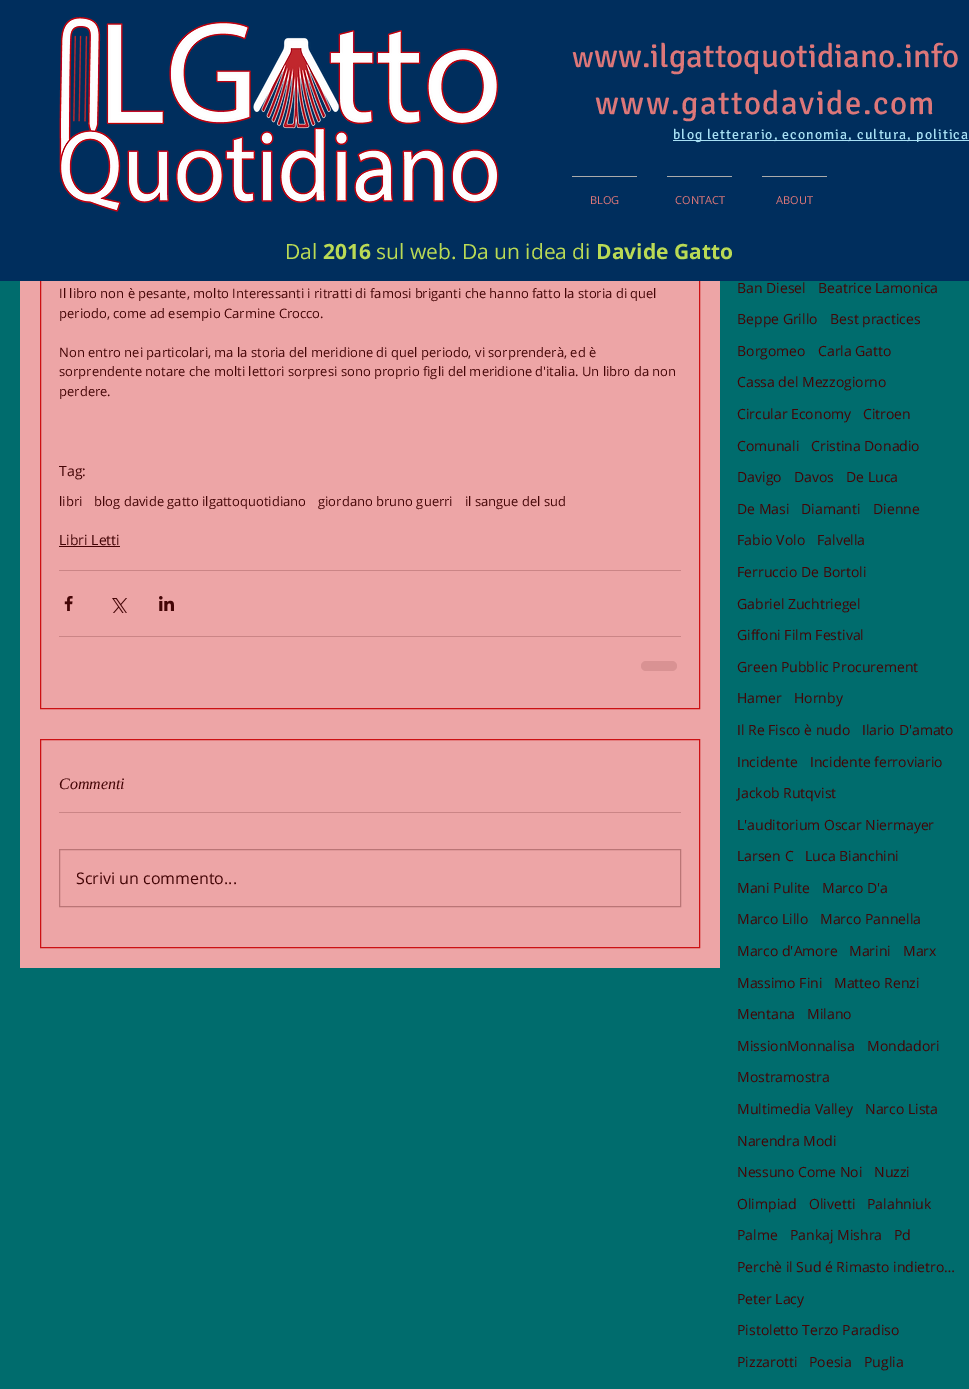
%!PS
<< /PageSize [969 1389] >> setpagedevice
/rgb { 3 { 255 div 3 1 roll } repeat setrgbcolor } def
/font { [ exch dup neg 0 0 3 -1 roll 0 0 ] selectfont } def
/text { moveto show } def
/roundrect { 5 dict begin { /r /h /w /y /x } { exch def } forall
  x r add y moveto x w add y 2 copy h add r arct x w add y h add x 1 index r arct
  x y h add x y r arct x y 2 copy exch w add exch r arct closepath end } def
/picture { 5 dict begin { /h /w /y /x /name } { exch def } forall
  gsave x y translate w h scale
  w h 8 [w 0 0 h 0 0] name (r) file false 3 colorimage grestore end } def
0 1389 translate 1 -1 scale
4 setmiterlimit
0 108 109 rgb
0 0 969 1389 rectfill
237 165 166 rgb
20 281 700 687 rectfill
204 16 19 rgb
40.5 -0.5 659 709 rectstroke
0 46 93 rgb
0 0 969 281 rectfill
(img_01.rgb) 59 16 440 196 picture
168 224 244 rgb
673 140 296 1 rectfill
171 171 171 rgb
572 176 65 1 rectfill
667 176 65 1 rectfill
762 176 65 1 rectfill
68 5 6 rgb
59 546 61 1 rectfill
203 133 134 rgb
59 570 622 1 rectfill
(img_02.rgb) 64 596 9 15 picture
(img_03.rgb) 112 598 15 15 picture
(img_04.rgb) 159 596 15 15 picture
59 636 622 1 rectfill
217 146 147 rgb
641 661 36 10 5 roundrect fill
204 16 19 rgb
40.5 739.5 659 208 rectstroke
203 133 134 rgb
59 812 622 1 rectfill
186 117 118 rgb
59.5 849.5 621 57 rectstroke
/Signika-Regular 30 font
221 119 121 rgb
(w) 572 67 text
/Signika-Regular 33 font
(ww.ilgattoquotidiano.info) 594 67 text
595 114 moveto 1.4 0 (www.gattodavide.com) ashow
/Signika-Regular 14 font
168 224 244 rgb
673 139 moveto 1 0 (blog letterario, economia, cultura, politica) ashow
/OpenSans-Regular 11 font
221 119 121 rgb
(BLOG) 590 204 text
(CONTACT) 675 204 text
(ABOUT) 776 204 text
/OpenSans-Regular 21 font
186 218 85 rgb
(Dal) 285 259 text
/OpenSans-Bold 21 font
(2016) 323 259 text
/OpenSans-Regular 21 font
(sul web. Da un idea di) 376 259 text
/OpenSans-Bold 21 font
(Davide Gatto) 596 259 text
/OpenSans-Regular 13 font
68 5 6 rgb
(Il libro non è pesante, molto Interessanti i ritratti di famosi briganti che hanno fatto la storia di quel) 59 298 text
(periodo, come ad esempio Carmine Crocco.) 59 318 text
(Non entro nei particolari, ma la storia del meridione di quel periodo, vi sorprenderà, ed è) 59 357 text
(sorprendente notare che molti lettori sorpresi sono proprio figli del meridione d'italia. Un libro da non) 59 376 text
(perdere.) 59 396 text
/OpenSans-Regular 14 font
(Tag:) 59 476 text
/OpenSans-Regular 13 font
(libri) 59 506 text
gsave
94 493 212 16 rectclip
(blog davide gatto ilgattoquotidiano) 94 506 text
grestore
(giordano bruno guerri) 318 506 text
(il sangue del sud) 465 506 text
/OpenSans-Regular 14 font
(Libri Letti) 59 545 text
/LiberationSerif-Italic 16 font
(Commenti) 59 789 text
/OpenSans-Regular 16 font
(Scrivi un commento...) 76 884 text
/OpenSans-Regular 14 font
(Ban Diesel) 737 293 text
(Beatrice Lamonica) 818 293 text
(Beppe Grillo) 737 324 text
(Best practices) 830 324 text
(Borgomeo) 737 356 text
(Carla Gatto) 818 356 text
(Cassa del Mezzogiorno) 737 387 text
(Circular Economy) 737 419 text
(Citroen) 863 419 text
(Comunali) 737 451 text
(Cristina Donadio) 811 451 text
(Davigo) 737 482 text
(Davos) 794 482 text
(De Luca) 846 482 text
(De Masi) 737 514 text
(Diamanti) 801 514 text
(Dienne) 873 514 text
(Fabio Volo) 737 545 text
(Falvella) 817 545 text
(Ferruccio De Bortoli) 737 577 text
(Gabriel Zuchtriegel) 737 609 text
(Giffoni Film Festival) 737 640 text
(Green Pubblic Procurement) 737 672 text
(Hamer) 737 703 text
(Hornby) 794 703 text
(Il Re Fisco è nudo) 737 735 text
(Ilario D'amato) 862 735 text
(Incidente) 737 767 text
(Incidente ferroviario) 810 767 text
(Jackob Rutqvist) 737 798 text
(L'auditorium Oscar Niermayer) 737 830 text
(Larsen C) 737 861 text
(Luca Bianchini) 805 861 text
(Mani Pulite) 737 893 text
(Marco D'a) 822 893 text
(Marco Lillo) 737 924 text
(Marco Pannella) 820 924 text
(Marco d'Amore) 737 956 text
(Marini) 849 956 text
(Marx) 903 956 text
(Massimo Fini) 737 988 text
(Matteo Renzi) 834 988 text
(Mentana) 737 1019 text
(Milano) 807 1019 text
(MissionMonnalisa) 737 1051 text
(Mondadori) 867 1051 text
(Mostramostra) 737 1082 text
(Multimedia Valley) 737 1114 text
(Narco Lista) 865 1114 text
(Narendra Modi) 737 1146 text
(Nessuno Come Noi) 737 1177 text
(Nuzzi) 874 1177 text
(Olimpiad) 737 1209 text
(Olivetti) 809 1209 text
(Palahniuk) 867 1209 text
(Palme) 737 1240 text
(Pankaj Mishra) 790 1240 text
(Pd) 894 1240 text
(Perchè il Sud é Rimasto indietro…) 737 1272 text
(Peter Lacy) 737 1304 text
(Pistoletto Terzo Paradiso) 737 1335 text
(Pizzarotti) 737 1367 text
(Poesia) 809 1367 text
(Puglia) 864 1367 text
showpage
